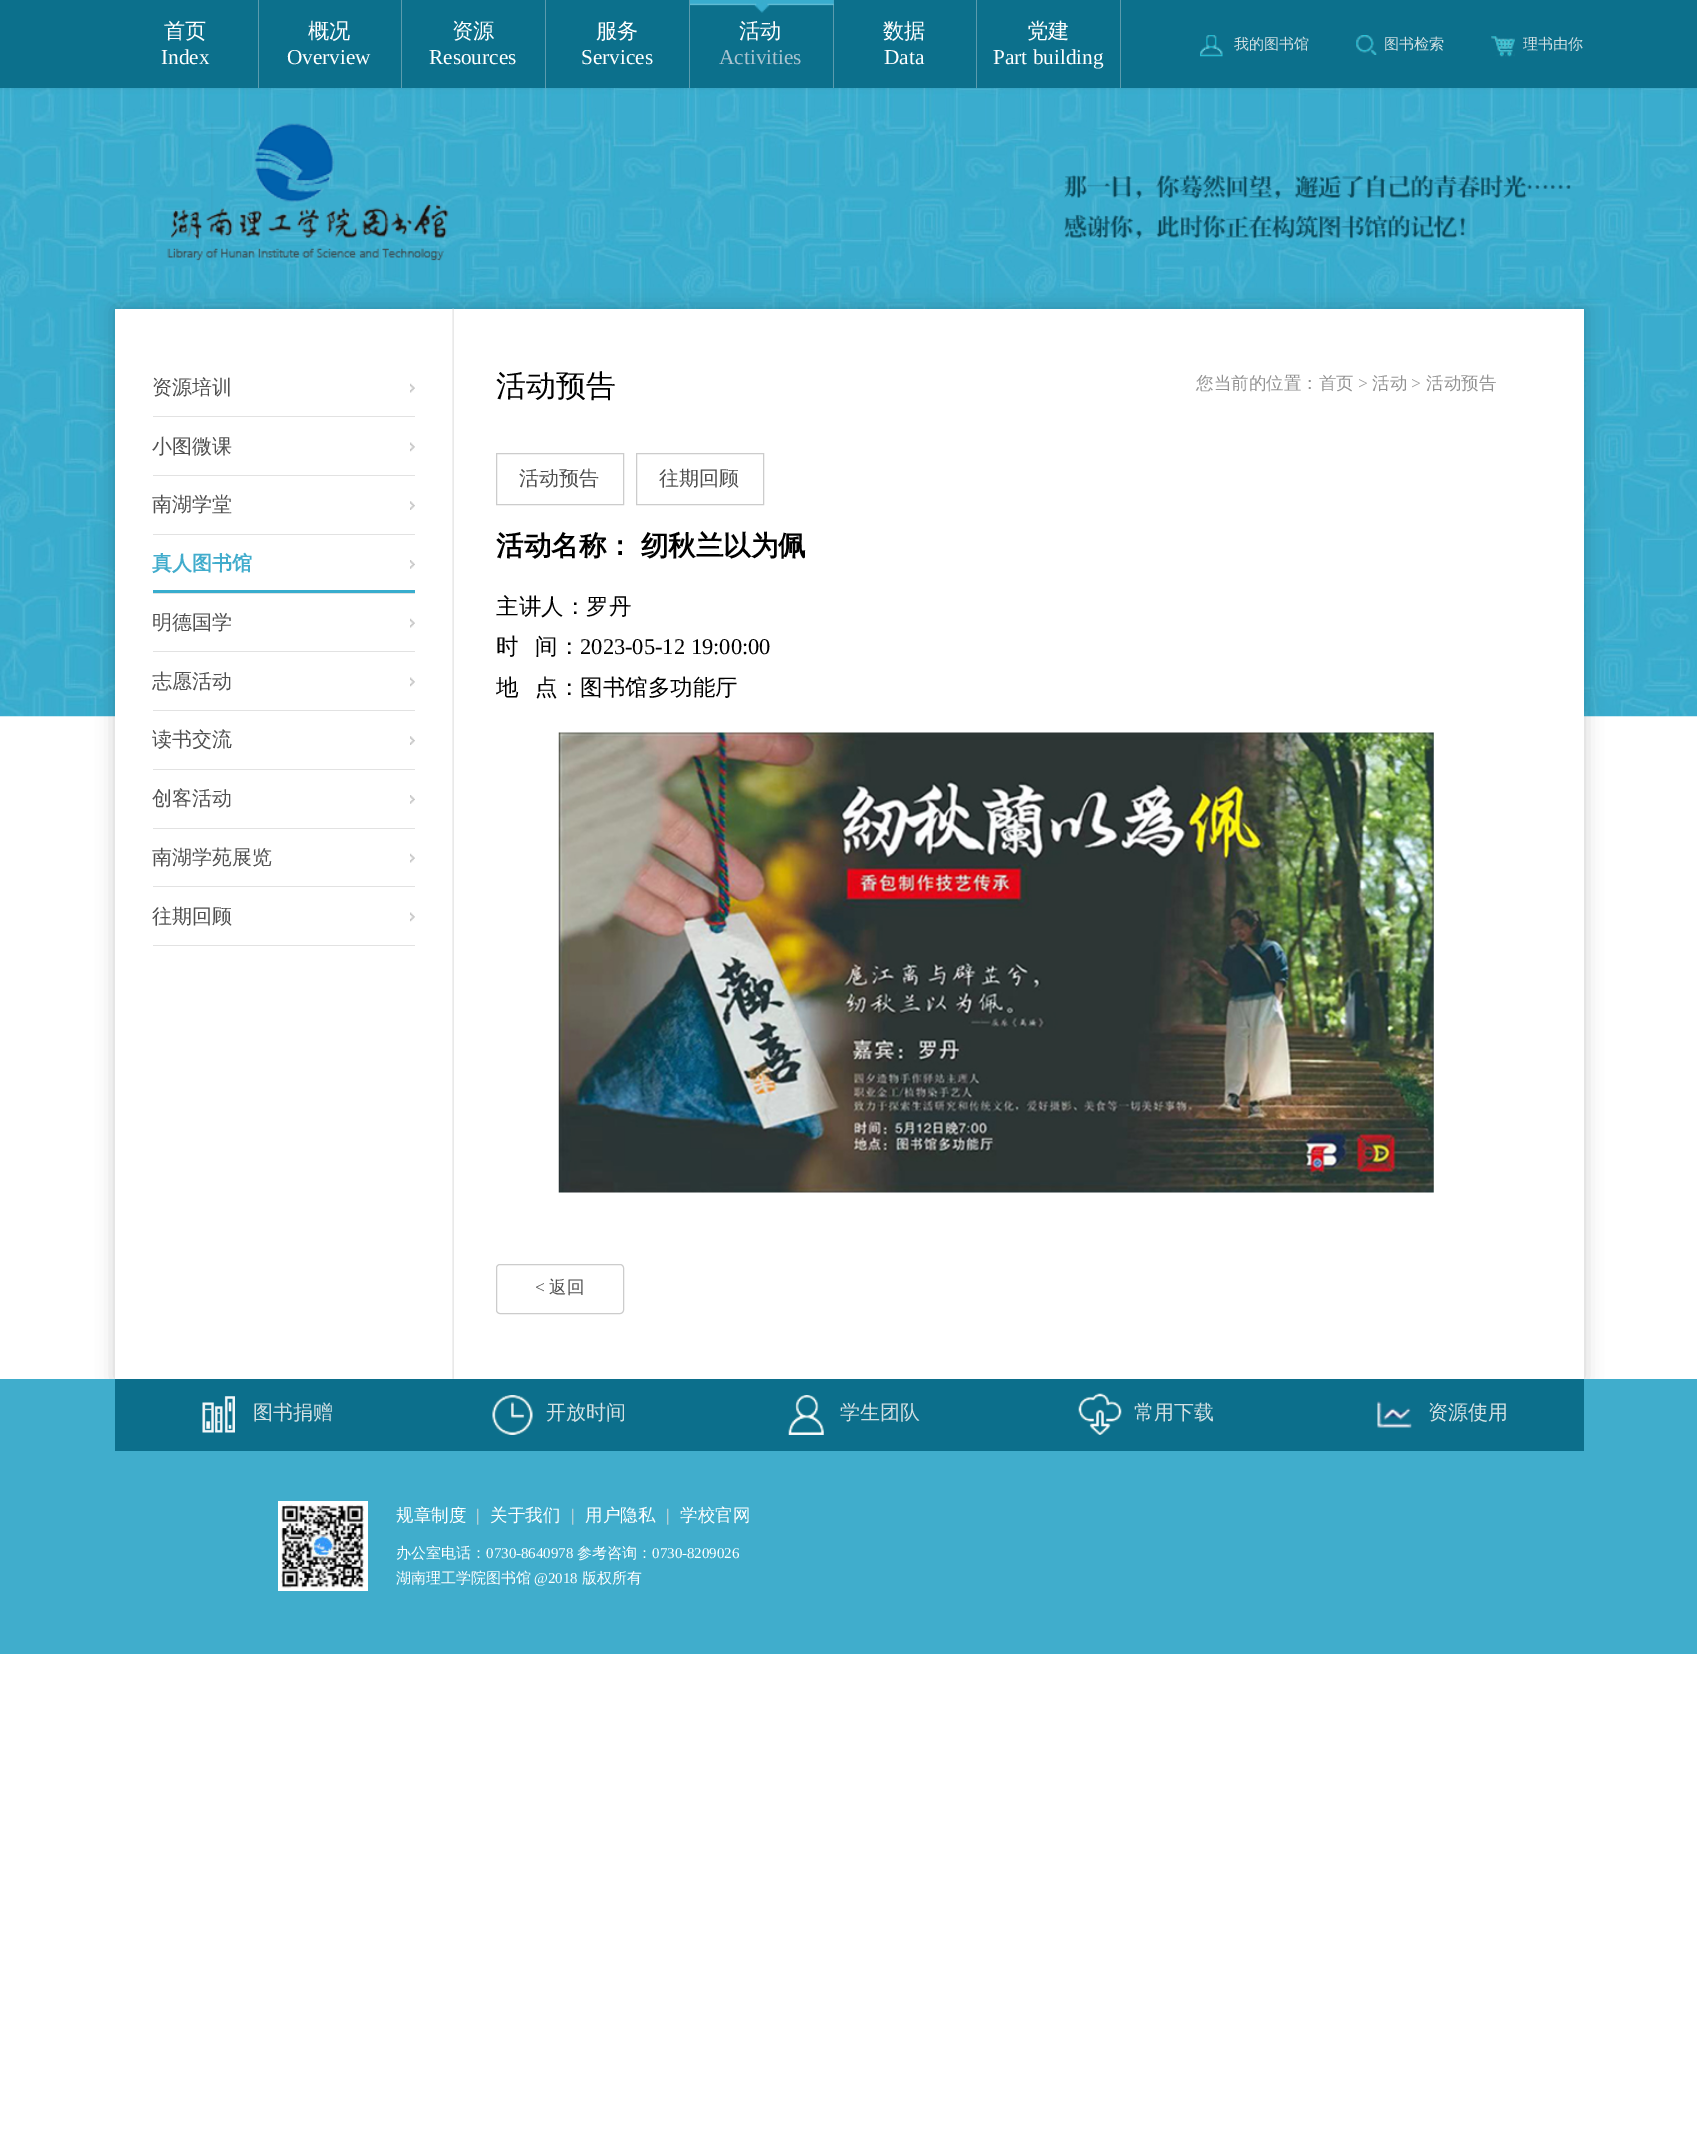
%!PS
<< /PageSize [1697 2146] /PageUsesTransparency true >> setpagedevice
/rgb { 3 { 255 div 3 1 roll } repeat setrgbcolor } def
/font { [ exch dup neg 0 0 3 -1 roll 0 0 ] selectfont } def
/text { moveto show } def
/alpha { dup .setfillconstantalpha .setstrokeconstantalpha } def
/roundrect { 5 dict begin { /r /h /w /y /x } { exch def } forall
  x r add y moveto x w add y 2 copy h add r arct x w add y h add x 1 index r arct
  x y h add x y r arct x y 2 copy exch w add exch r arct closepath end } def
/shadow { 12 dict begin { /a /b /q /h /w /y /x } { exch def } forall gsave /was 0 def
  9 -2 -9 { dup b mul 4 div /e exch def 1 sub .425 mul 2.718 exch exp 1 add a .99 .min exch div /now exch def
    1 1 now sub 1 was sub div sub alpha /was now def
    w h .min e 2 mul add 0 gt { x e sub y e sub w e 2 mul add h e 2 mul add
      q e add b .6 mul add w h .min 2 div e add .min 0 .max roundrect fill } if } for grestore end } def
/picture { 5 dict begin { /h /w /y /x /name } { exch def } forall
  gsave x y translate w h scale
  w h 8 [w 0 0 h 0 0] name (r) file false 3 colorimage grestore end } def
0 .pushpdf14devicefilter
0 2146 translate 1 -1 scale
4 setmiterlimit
255 255 255 rgb
0 0 1697 2146 rectfill
(img_01.rgb) 0 88 1697 629 picture
12 112 140 rgb
0 0 1697 88 rectfill
92 155 173 rgb
833 0 1 88 rectfill
(img_02.rgb) 690 0 144 13 picture
258 0 1 88 rectfill
401 0 1 88 rectfill
545 0 1 88 rectfill
689 0 1 88 rectfill
976 0 1 88 rectfill
1120 0 1 88 rectfill
(img_03.rgb) 1200 35 23 22 picture
(img_04.rgb) 1356 35 21 20 picture
(img_05.rgb) 1491 36 24 21 picture
0 0 0 rgb
115 309 1469 1070 0 9 0.2 shadow
(img_06.rgb) 167 123 282 163 picture
(img_07.rgb) 1064 174 507 65 picture
255 255 255 rgb
115 309 1469 1070 rectfill
(img_08.rgb) 452 308 2 1071 picture
226 226 226 rgb
153 416 262 1 rectfill
(img_09.rgb) 410 383 5 10 picture
153 475 262 1 rectfill
(img_10.rgb) 410 442 5 10 picture
153 534 262 1 rectfill
(img_11.rgb) 410 501 5 9 picture
153 593 262 1 rectfill
(img_12.rgb) 410 560 5 9 picture
56 173 206 rgb
153 590 262 3 rectfill
226 226 226 rgb
153 651 262 1 rectfill
(img_09.rgb) 410 618 5 10 picture
153 710 262 1 rectfill
(img_10.rgb) 410 677 5 10 picture
153 769 262 1 rectfill
(img_11.rgb) 410 736 5 9 picture
153 828 262 1 rectfill
(img_12.rgb) 410 795 5 9 picture
153 886 262 1 rectfill
(img_09.rgb) 410 853 5 10 picture
153 945 262 1 rectfill
(img_10.rgb) 410 912 5 10 picture
204 204 204 rgb
496.5 453.5 127 51 rectstroke
636.5 453.5 127 51 rectstroke
(img_13.rgb) 558 732 876 461 picture
496.5 1264.5 127 49 3.5 roundrect stroke
64 173 204 rgb
0 1379 1697 275 rectfill
12 111 140 rgb
115 1379 1469 72 rectfill
(img_14.rgb) 202 1396 33 37 picture
(img_15.rgb) 492 1395 41 40 picture
(img_16.rgb) 788 1395 36 40 picture
(img_17.rgb) 1078 1393 44 42 picture
(img_18.rgb) 1377 1401 35 27 picture
255 255 255 rgb
278 1501 90 90 rectfill
(img_19.rgb) 281 1504 84 85 picture
/WenQuanYiZenHei-Medium 21.25 font
(首页) 164 38 text
/LiberationSerif-Regular 21.25 font
(Index) 161 64 text
/WenQuanYiZenHei-Medium 21.25 font
(概况) 308 38 text
/LiberationSerif-Regular 21.25 font
(Overview) 287 64 text
/WenQuanYiZenHei-Medium 21.25 font
(资源) 452 38 text
/LiberationSerif-Regular 21.25 font
(Resources) 429 64 text
/WenQuanYiZenHei-Medium 21.25 font
(服务) 596 38 text
/LiberationSerif-Regular 21.25 font
(Services) 581 64 text
/WenQuanYiZenHei-Medium 21.25 font
(活动) 739 38 text
/LiberationSerif-Regular 21.25 font
169 195 208 rgb
(Activities) 719 64 text
/WenQuanYiZenHei-Medium 21.25 font
255 255 255 rgb
(数据) 883 38 text
/LiberationSerif-Regular 21.25 font
(Data) 884 64 text
/WenQuanYiZenHei-Medium 21.25 font
(党建) 1027 38 text
/LiberationSerif-Regular 21.25 font
(Part building) 993 64 text
/WenQuanYiZenHei-Medium 15 font
210 224 227 rgb
(我的图书馆) 1234 49 text
(图书检索) 1384 49 text
(理书由你) 1523 49 text
/WenQuanYiZenHei-Medium 20 font
79 79 79 rgb
(资源培训) 152 394 text
(小图微课) 152 453 text
(南湖学堂) 152 511 text
/WenQuanYiZenHei-Bold 20 font
65 172 204 rgb
(真人图书馆) 152 570 text
/WenQuanYiZenHei-Medium 20 font
79 79 79 rgb
(明德国学) 152 629 text
(志愿活动) 152 688 text
(读书交流) 152 746 text
(创客活动) 152 805 text
(南湖学苑展览) 152 864 text
(往期回顾) 152 923 text
/WenQuanYiZenHei-Medium 30 font
0 0 0 rgb
(活动预告) 496 396 text
/WenQuanYiZenHei-Medium 17.5 font
146 146 146 rgb
(您当前的位置：首页) 1196 389 text
/LiberationSerif-Regular 17.5 font
(>) 1358 389 text
/WenQuanYiZenHei-Medium 17.5 font
(活动) 1372 389 text
/LiberationSerif-Regular 17.5 font
(>) 1411 389 text
/WenQuanYiZenHei-Medium 17.5 font
(活动预告) 1426 389 text
/WenQuanYiZenHei-Medium 20 font
79 79 79 rgb
(活动预告) 519 485 text
(往期回顾) 659 485 text
/WenQuanYiZenHei-Bold 27.5 font
0 0 0 rgb
496 555 moveto -1 0 32 (活动名称： 纫秋兰以为佩) widthshow
/WenQuanYiZenHei-Medium 22.5 font
(主讲人：罗丹) 496 614 text
(时) 496 654 text
(间：) 535 654 text
/LiberationSerif-Regular 22.5 font
(2023-05-12 19:00:00) 580 654 text
/WenQuanYiZenHei-Medium 22.5 font
(地) 496 695 text
(点：图书馆多功能厅) 535 695 text
/LiberationSerif-Regular 17.5 font
79 79 79 rgb
(<) 535 1293 text
/WenQuanYiZenHei-Medium 17.5 font
(返回) 549 1293 text
/WenQuanYiZenHei-Medium 20 font
210 224 227 rgb
(图书捐赠) 253 1419 text
(开放时间) 546 1419 text
(学生团队) 840 1419 text
(常用下载) 1134 1419 text
(资源使用) 1428 1419 text
/WenQuanYiZenHei-Medium 17.5 font
255 255 255 rgb
(规章制度) 396 1521 text
/LiberationSerif-Regular 17.5 font
219 219 217 rgb
(|) 476 1521 text
/WenQuanYiZenHei-Medium 17.5 font
255 255 255 rgb
(关于我们) 490 1521 text
/LiberationSerif-Regular 17.5 font
219 219 217 rgb
(|) 571 1521 text
/WenQuanYiZenHei-Medium 17.5 font
255 255 255 rgb
(用户隐私) 585 1521 text
/LiberationSerif-Regular 17.5 font
219 219 217 rgb
(|) 666 1521 text
/WenQuanYiZenHei-Medium 17.5 font
255 255 255 rgb
(学校官网) 680 1521 text
/WenQuanYiZenHei-Medium 15 font
(办公室电话：) 396 1558 text
/LiberationSerif-Regular 15 font
(0730-8640978) 486 1558 text
/WenQuanYiZenHei-Medium 15 font
(参考咨询：) 577 1558 text
/LiberationSerif-Regular 15 font
(0730-8209026) 652 1558 text
/WenQuanYiZenHei-Medium 15 font
(湖南理工学院图书馆) 396 1583 text
/LiberationSerif-Regular 15 font
(@2018) 534 1583 text
/WenQuanYiZenHei-Medium 15 font
(版权所有) 582 1583 text
.poppdf14devicefilter showpage
